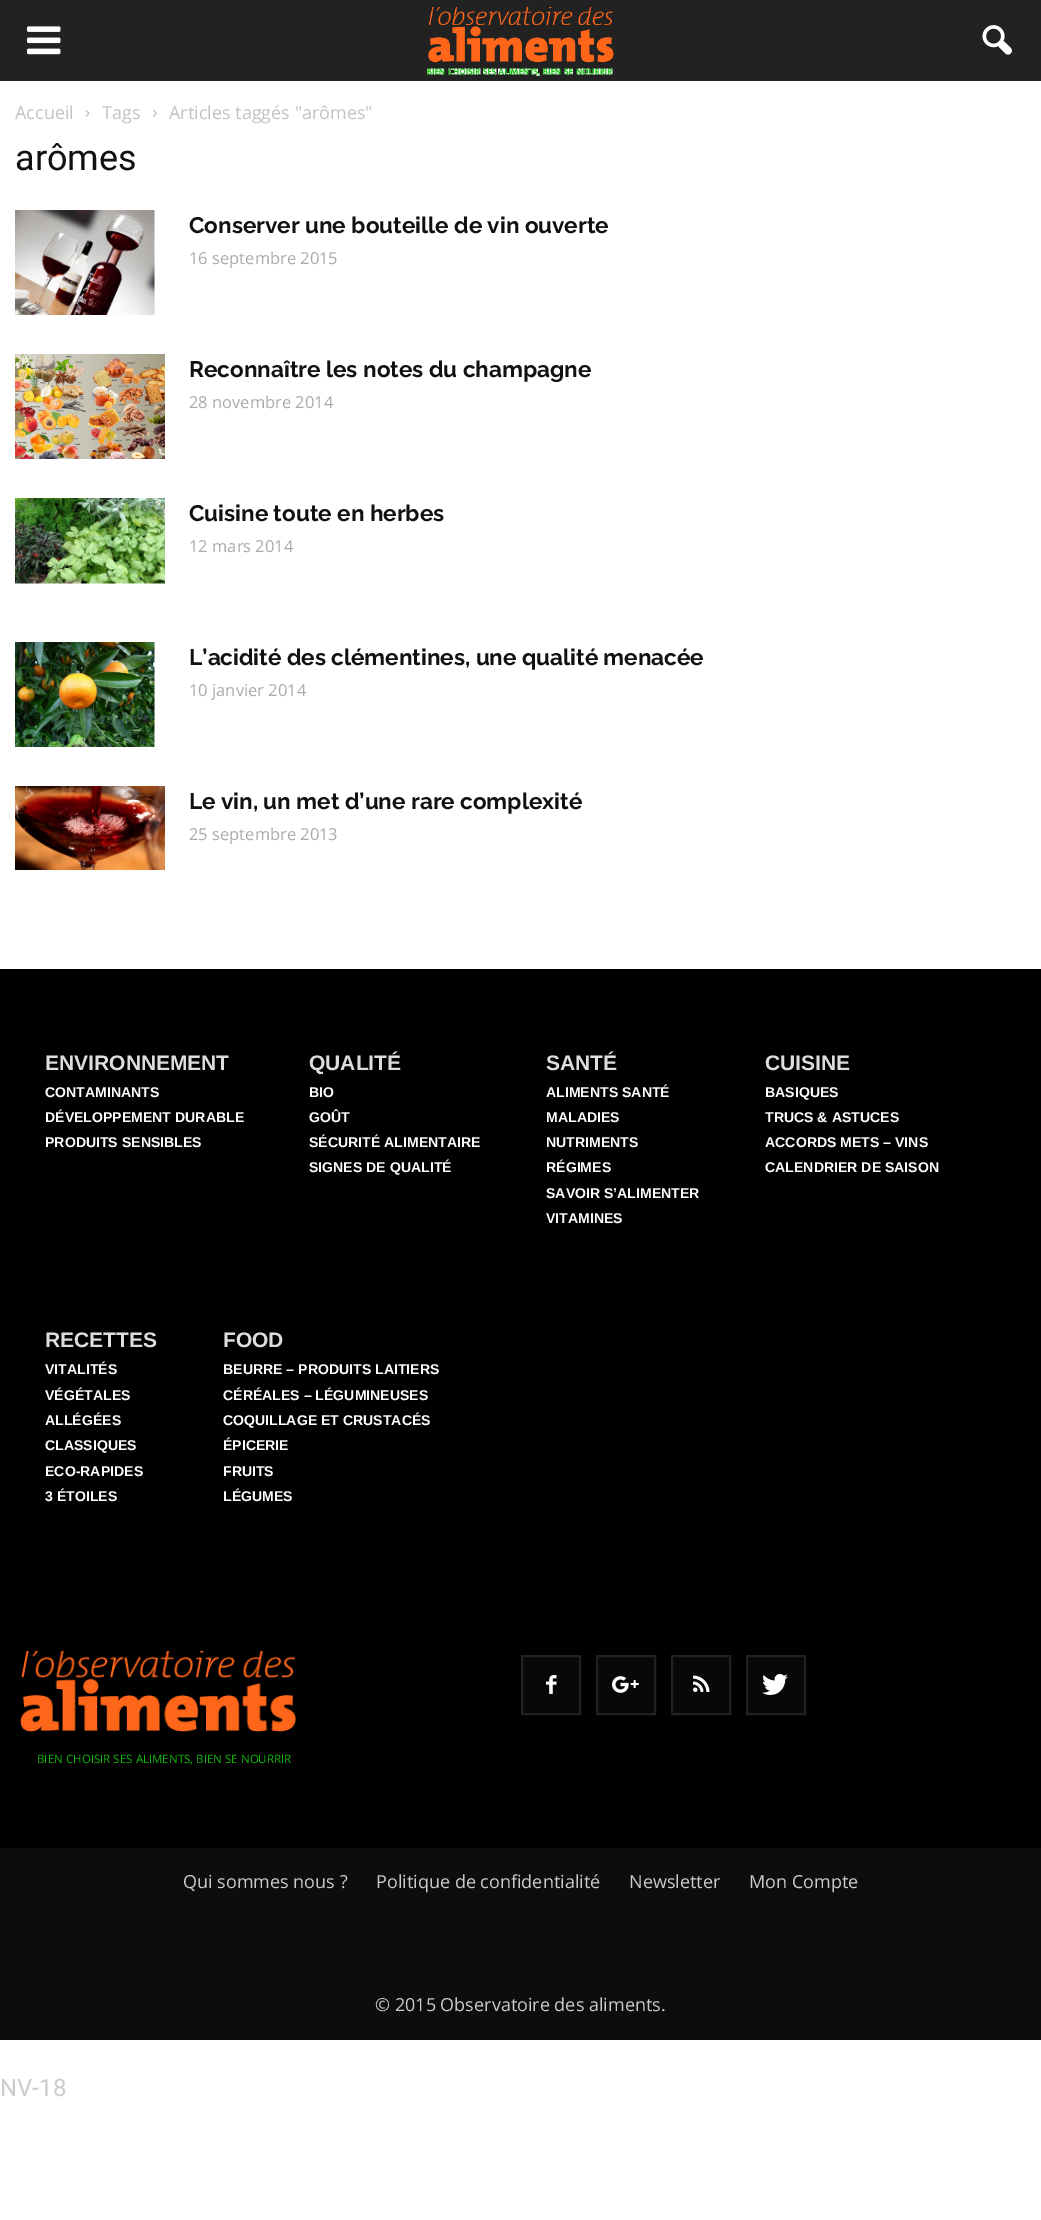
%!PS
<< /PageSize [1041 2220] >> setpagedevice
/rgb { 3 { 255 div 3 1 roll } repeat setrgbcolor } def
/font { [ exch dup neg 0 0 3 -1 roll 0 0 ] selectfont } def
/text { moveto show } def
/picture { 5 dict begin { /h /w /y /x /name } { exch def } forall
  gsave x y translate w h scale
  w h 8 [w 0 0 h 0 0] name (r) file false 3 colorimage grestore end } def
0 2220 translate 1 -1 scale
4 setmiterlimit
255 255 255 rgb
0 0 1041 2220 rectfill
34 34 34 rgb
0 0 1041 81 rectfill
(img_01.rgb) 27 26 34 29 picture
(img_02.rgb) 427 7 187 69 picture
(img_03.rgb) 982 25 30 30 picture
(img_04.rgb) 85 110 5 7 picture
(img_05.rgb) 153 110 4 7 picture
(img_06.rgb) 15 210 140 105 picture
(img_07.rgb) 15 354 150 105 picture
(img_08.rgb) 15 498 150 86 picture
(img_09.rgb) 15 642 140 105 picture
(img_10.rgb) 15 786 150 84 picture
0 0 0 rgb
0 969 1041 879 rectfill
(img_11.rgb) 20 1650 277 82 picture
8 8 8 rgb
522 1656 moveto 58 0 rlineto 0 58 rlineto -58 0 rlineto closepath gsave fill grestore
33 33 33 rgb
2 setlinewidth
stroke
(img_12.rgb) 546 1675 11 19 picture
8 8 8 rgb
597 1656 moveto 58 0 rlineto 0 58 rlineto -58 0 rlineto closepath gsave fill grestore
33 33 33 rgb
stroke
(img_13.rgb) 612 1676 27 17 picture
8 8 8 rgb
672 1656 moveto 58 0 rlineto 0 58 rlineto -58 0 rlineto closepath gsave fill grestore
33 33 33 rgb
stroke
(img_14.rgb) 693 1675 17 17 picture
8 8 8 rgb
747 1656 moveto 58 0 rlineto 0 58 rlineto -58 0 rlineto closepath gsave fill grestore
33 33 33 rgb
stroke
(img_15.rgb) 762 1674 26 21 picture
13 13 13 rgb
0 1848 1041 192 rectfill
/OpenSans-Regular 18 font
195 195 195 rgb
(Accueil) 15 119 text
(Tags) 102 119 text
(Articles taggés "arômes") 169 119 text
/Roboto-Regular 36 font
17 17 17 rgb
(arômes) 15 170 text
/Raleway-Bold 22.5 font
(Conserver une bouteille de vin ouverte) 189 233 text
/OpenSans-Regular 16.5 font
170 170 170 rgb
(16 septembre 2015) 189 264 text
/Raleway-Bold 22.5 font
17 17 17 rgb
(Reconnaître les notes du champagne) 189 377 text
/OpenSans-Regular 16.5 font
170 170 170 rgb
(28 novembre 2014) 189 408 text
/Raleway-Bold 22.5 font
17 17 17 rgb
(Cuisine toute en herbes) 189 521 text
/OpenSans-Regular 16.5 font
170 170 170 rgb
(12 mars 2014) 189 552 text
/Raleway-Bold 22.5 font
17 17 17 rgb
(L’acidité des clémentines, une qualité menacée) 189 665 text
/OpenSans-Regular 16.5 font
170 170 170 rgb
(10 janvier 2014) 189 696 text
/Raleway-Bold 22.5 font
17 17 17 rgb
(Le vin, un met d’une rare complexité) 189 809 text
/OpenSans-Regular 16.5 font
170 170 170 rgb
(25 septembre 2013) 189 840 text
/LiberationSans-Bold 21 font
221 221 221 rgb
(ENVIRONNEMENT) 45 1070 text
/LiberationSans-Bold 14.1 font
255 255 255 rgb
(CONTAMINANTS) 45 1097 text
(DÉVELOPPEMENT DURABLE) 45 1122 text
(PRODUITS SENSIBLES) 45 1147 text
/LiberationSans-Bold 21 font
221 221 221 rgb
(QUALITÉ) 309 1070 text
/LiberationSans-Bold 14.1 font
255 255 255 rgb
(BIO) 309 1097 text
(GOÛT) 309 1122 text
(SÉCURITÉ ALIMENTAIRE) 309 1147 text
(SIGNES DE QUALITÉ) 309 1172 text
/LiberationSans-Bold 21 font
221 221 221 rgb
(SANTÉ) 546 1070 text
/LiberationSans-Bold 14.1 font
255 255 255 rgb
(ALIMENTS SANTÉ) 546 1097 text
(MALADIES) 546 1122 text
(NUTRIMENTS) 546 1147 text
(RÉGIMES) 546 1172 text
(SAVOIR S’ALIMENTER) 546 1198 text
(VITAMINES) 546 1223 text
/LiberationSans-Bold 21 font
221 221 221 rgb
(CUISINE) 765 1070 text
/LiberationSans-Bold 14.1 font
255 255 255 rgb
(BASIQUES) 765 1097 text
(TRUCS & ASTUCES) 765 1122 text
(ACCORDS METS – VINS) 765 1147 text
(CALENDRIER DE SAISON) 765 1172 text
/LiberationSans-Bold 21 font
221 221 221 rgb
(RECETTES) 45 1347 text
/LiberationSans-Bold 14.1 font
255 255 255 rgb
(VITALITÉS) 45 1374 text
(VÉGÉTALES) 45 1400 text
(ALLÉGÉES) 45 1425 text
(CLASSIQUES) 45 1450 text
(ECO-RAPIDES) 45 1476 text
(3 ÉTOILES) 45 1501 text
/LiberationSans-Bold 21 font
221 221 221 rgb
(FOOD) 223 1347 text
/LiberationSans-Bold 14.1 font
255 255 255 rgb
(BEURRE – PRODUITS LAITIERS) 223 1374 text
(CÉRÉALES – LÉGUMINEUSES) 223 1400 text
(COQUILLAGE ET CRUSTACÉS) 223 1425 text
(ÉPICERIE) 223 1450 text
(FRUITS) 223 1476 text
(LÉGUMES) 223 1501 text
/OpenSans-Regular 11.55 font
18 190 12 rgb
(BIEN CHOISIR SES ALIMENTS, BIEN SE NOURRIR) 37 1763 text
/OpenSans-Regular 18 font
204 204 204 rgb
(Qui sommes nous ?) 183 1888 text
(Politique de confidentialité) 376 1888 text
(Newsletter) 629 1888 text
(Mon Compte) 749 1888 text
(© 2015 Observatoire des aliments.) 375 2011 text
/Roboto-Regular 24 font
(NV-18) 0 2096 text
showpage
